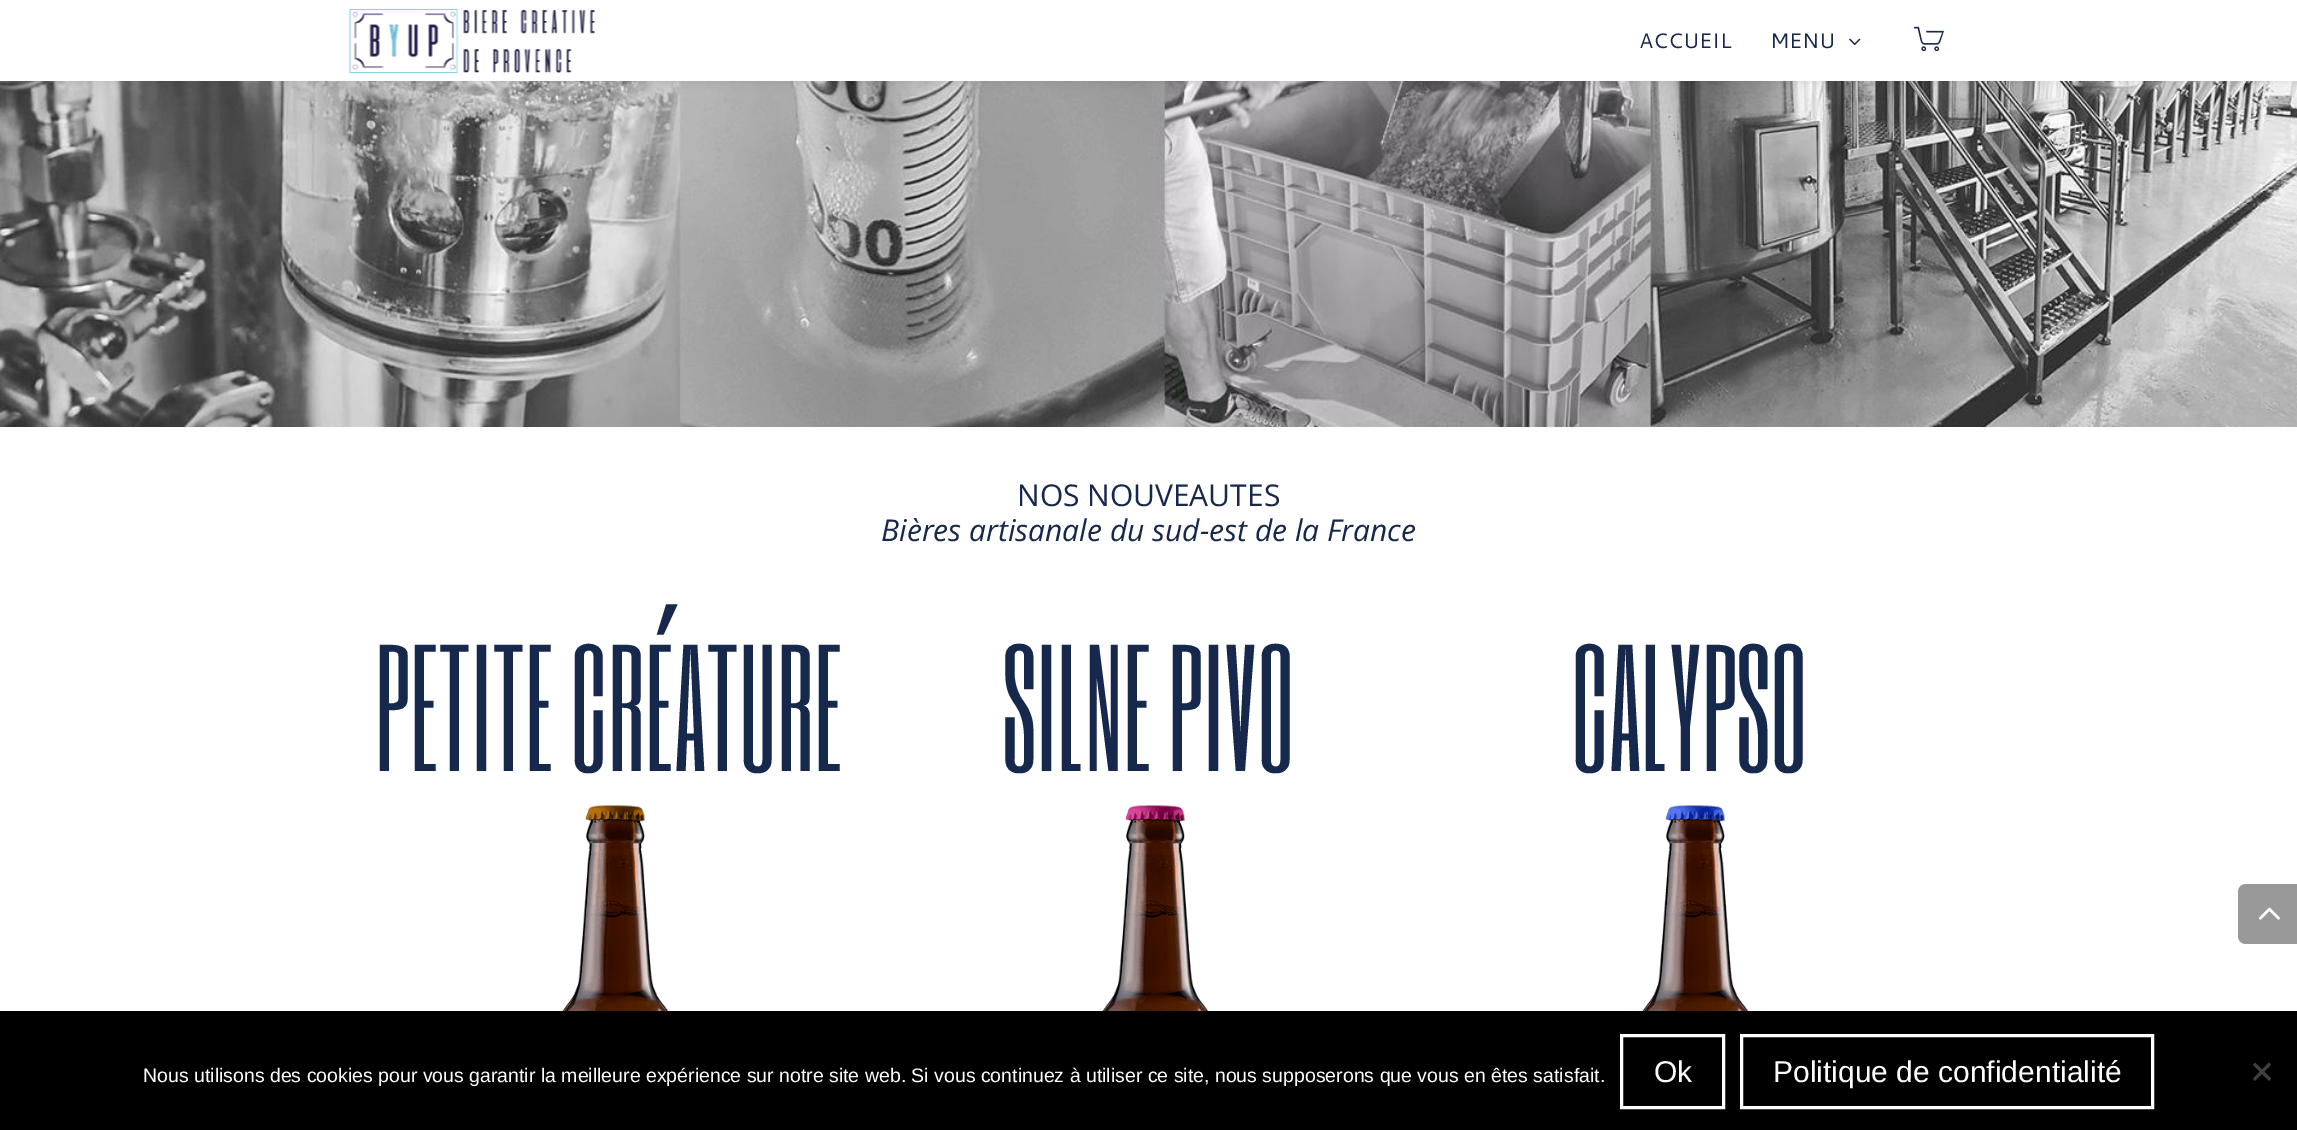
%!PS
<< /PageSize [2297 1130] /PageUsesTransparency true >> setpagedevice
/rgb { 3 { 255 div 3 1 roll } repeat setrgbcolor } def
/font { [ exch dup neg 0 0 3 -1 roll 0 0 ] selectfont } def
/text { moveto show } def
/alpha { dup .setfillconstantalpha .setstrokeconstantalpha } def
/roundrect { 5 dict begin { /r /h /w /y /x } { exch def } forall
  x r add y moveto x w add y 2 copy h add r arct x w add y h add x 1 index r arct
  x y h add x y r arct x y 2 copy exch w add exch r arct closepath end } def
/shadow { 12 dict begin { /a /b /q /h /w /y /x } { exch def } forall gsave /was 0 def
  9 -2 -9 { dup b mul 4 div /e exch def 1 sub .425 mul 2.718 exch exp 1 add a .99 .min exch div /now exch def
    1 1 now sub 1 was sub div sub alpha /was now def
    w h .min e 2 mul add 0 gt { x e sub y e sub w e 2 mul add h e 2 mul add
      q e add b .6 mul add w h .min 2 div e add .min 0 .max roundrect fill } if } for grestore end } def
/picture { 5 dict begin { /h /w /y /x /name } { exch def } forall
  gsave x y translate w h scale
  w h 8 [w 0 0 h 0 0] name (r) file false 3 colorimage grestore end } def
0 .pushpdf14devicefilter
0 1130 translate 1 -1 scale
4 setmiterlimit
255 255 255 rgb
0 0 2297 1130 rectfill
(img_04.rgb) 0 81 2297 346 picture
0 0 0 rgb
0 0 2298 81 0 5 0.1 shadow
255 255 255 rgb
0 0 2297 81 rectfill
(img_01.rgb) 348 8 248 66 picture
(img_02.rgb) 1849 38 12 7 picture
(img_03.rgb) 1914 26 30 26 picture
(img_05.rgb) 562 805 106 206 picture
(img_06.rgb) 1102 805 106 206 picture
(img_07.rgb) 1642 805 106 206 picture
153 153 153 rgb
2246 884 moveto 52 0 rlineto 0 60 rlineto -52 0 rlineto -4.5 0 -8 -3.5 -8 -8 rcurveto 0 -44 rlineto 0 -4.5 3.5 -8 8 -8 rcurveto closepath fill
(img_08.rgb) 2258 907 22 13 picture
0 0 0 rgb
0 1011 2297 119 rectfill
255 255 255 rgb
3 setlinewidth
1621.5 1035.5 102 72 rectstroke
1741.5 1035.5 411 72 rectstroke
64 64 64 rgb
2269 1062.5 moveto 2 2.5 rlineto -16 16 rlineto -2 -2.5 rlineto closepath fill
2253 1065 moveto 2 -2.5 rlineto 16 16 rlineto -2 2.5 rlineto closepath fill
/Cantarell-Regular 21 font
22 40 76 rgb
(ACCUEIL) 1639 48 text
(MENU) 1770 48 text
/OpenSans-Regular 30 font
(NOS NOUVEAUTES) 1017 506 text
/OpenSans-Italic 30 font
(Bières artisanale du sud-est de la France) 881 541 text
/SixCaps-Regular 150 font
(PETITE CRÉATURE) 375 771 text
(SILNE PIVO) 1003 771 text
(CALYPSO) 1571 771 text
/LiberationSans-Regular 19.5 font
255 255 255 rgb
(Nous utilisons des cookies pour vous garantir la meilleure expérience sur notre site web. Si vous continuez à utiliser ce site, nous supposerons que vous en êtes satisfait.) 143 1082 text
/LiberationSans-Regular 30 font
(Ok) 1654 1082 text
(Politique de confidentialité) 1773 1082 text
.poppdf14devicefilter showpage
